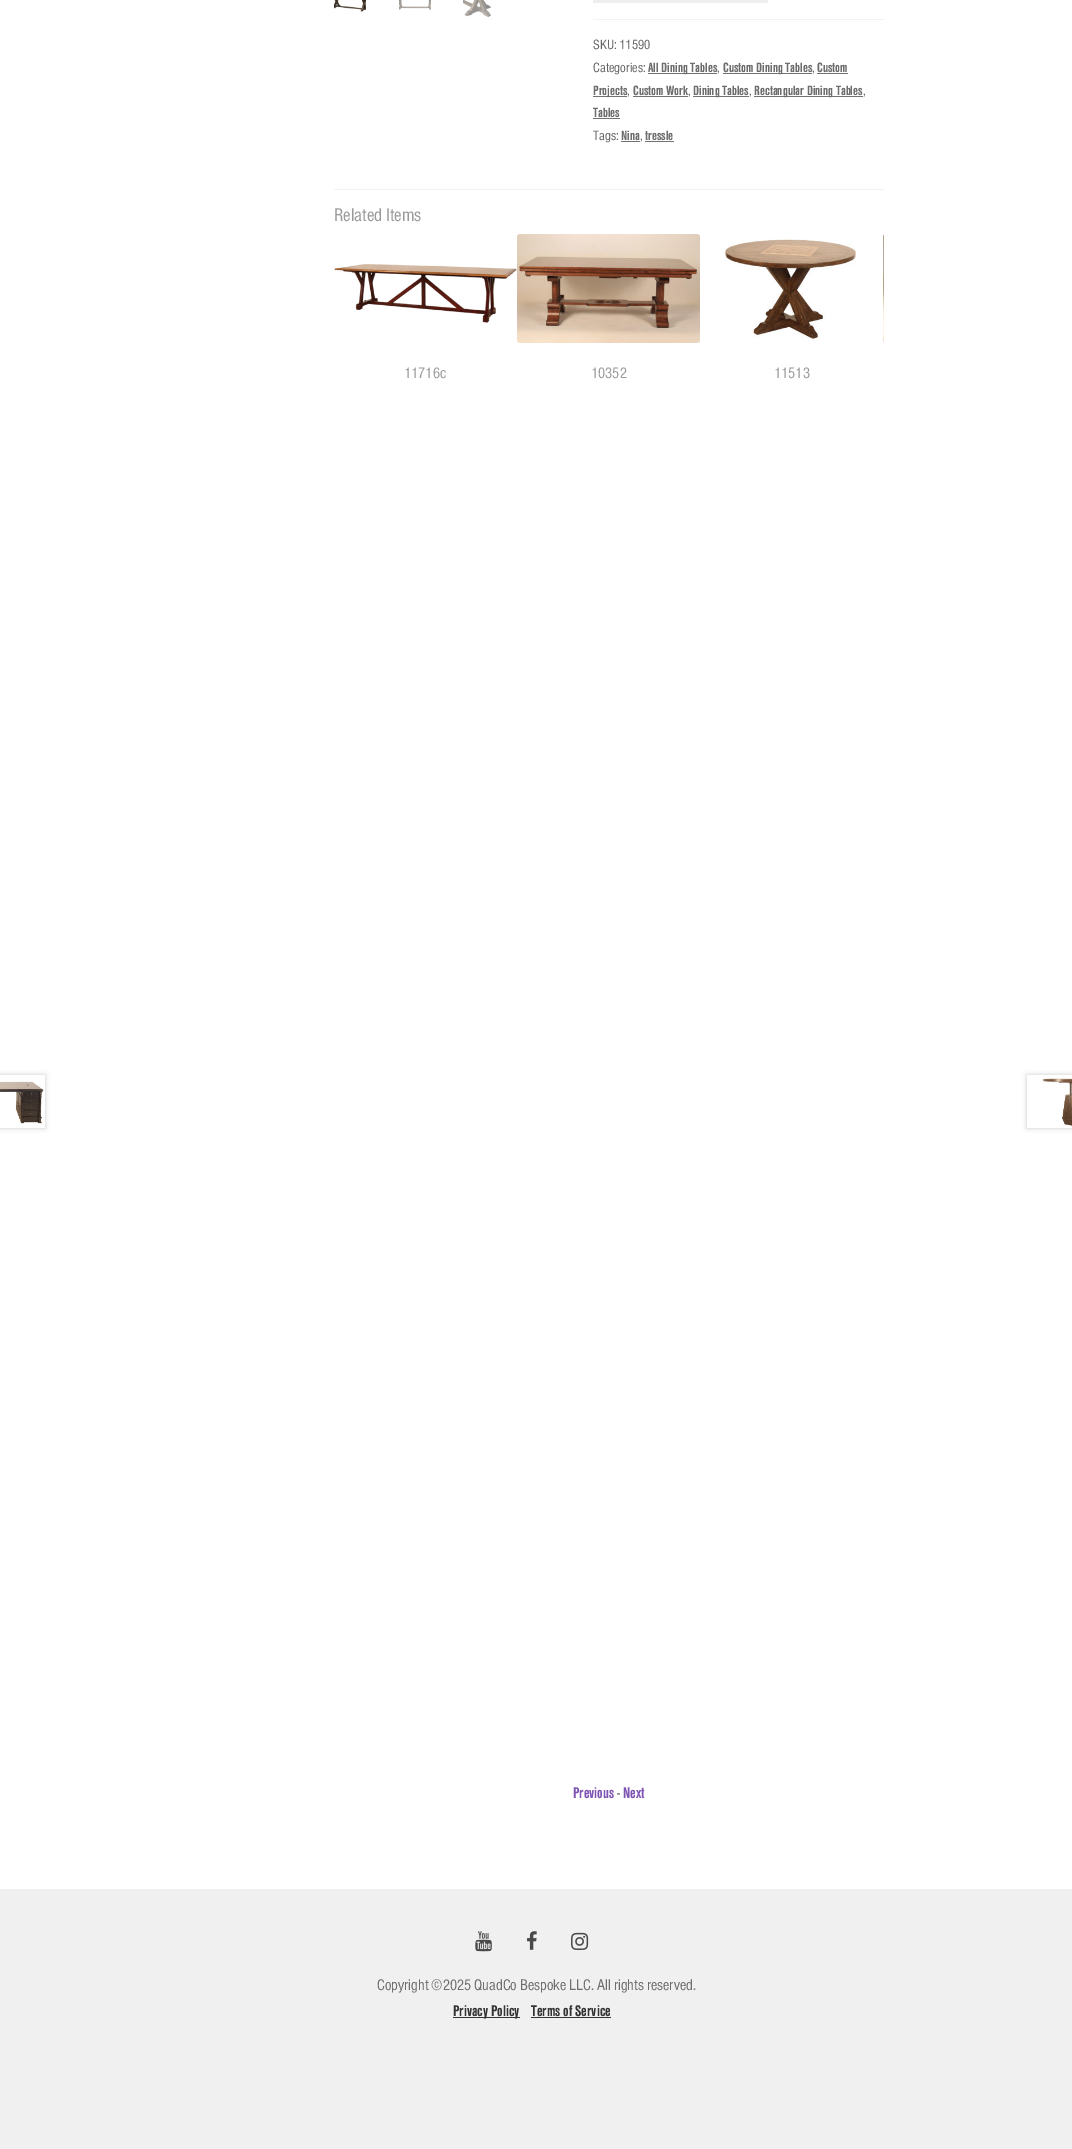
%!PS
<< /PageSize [1072 2149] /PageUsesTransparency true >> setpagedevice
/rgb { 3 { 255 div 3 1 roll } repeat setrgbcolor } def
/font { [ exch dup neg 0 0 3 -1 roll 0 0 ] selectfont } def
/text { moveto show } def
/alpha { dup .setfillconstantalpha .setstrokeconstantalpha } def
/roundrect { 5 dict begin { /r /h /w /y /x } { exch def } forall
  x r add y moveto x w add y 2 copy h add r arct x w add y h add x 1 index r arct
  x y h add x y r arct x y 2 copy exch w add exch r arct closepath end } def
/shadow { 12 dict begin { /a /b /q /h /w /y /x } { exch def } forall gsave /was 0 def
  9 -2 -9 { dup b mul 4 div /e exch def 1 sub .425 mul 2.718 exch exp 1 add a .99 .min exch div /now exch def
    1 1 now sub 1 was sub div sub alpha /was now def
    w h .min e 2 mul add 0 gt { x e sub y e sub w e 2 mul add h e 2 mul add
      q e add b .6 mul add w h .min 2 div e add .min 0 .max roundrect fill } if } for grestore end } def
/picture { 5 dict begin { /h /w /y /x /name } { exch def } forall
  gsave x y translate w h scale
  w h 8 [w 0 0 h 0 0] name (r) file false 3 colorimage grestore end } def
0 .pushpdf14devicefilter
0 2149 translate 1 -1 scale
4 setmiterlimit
255 255 255 rgb
0 0 1072 2149 rectfill
(img_01.rgb) 334 0 32 12 picture
(img_02.rgb) 399 0 32 10 picture
(img_03.rgb) 463 0 29 18 picture
238 238 238 rgb
593 0 175 3 rectfill
242 242 242 rgb
593 19 291 1 rectfill
114 114 114 rgb
648 73 69 1 rectfill
723 73 89 1 rectfill
817 73 31 1 rectfill
593 96 34 1 rectfill
633 96 55 1 rectfill
693 96 56 1 rectfill
754 96 109 1 rectfill
593 118 27 1 rectfill
621 141 19 1 rectfill
645 141 29 1 rectfill
gsave
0 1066 moveto 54 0 rlineto 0 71 rlineto -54 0 rlineto closepath -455 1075 moveto 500 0 rlineto 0 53 rlineto -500 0 rlineto closepath eoclip newpath
0 0 0 rgb
-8 1075 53 53 0 2.5 0.2 shadow
grestore
(img_04.rgb) 0 1081 44 43 picture
gsave
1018 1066 moveto 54 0 rlineto 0 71 rlineto -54 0 rlineto closepath 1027 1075 moveto 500 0 rlineto 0 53 rlineto -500 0 rlineto closepath eoclip newpath
0 0 0 rgb
1027 1075 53 53 0 2.5 0.2 shadow
grestore
(img_05.rgb) 1042 1078 30 48 picture
242 242 242 rgb
334 189 550 1 rectfill
(img_06.rgb) 883 234 1 109 picture
(img_07.rgb) 334 263 183 60 picture
(img_08.rgb) 517 234 183 109 picture
(img_09.rgb) 723 239 133 102 picture
240 240 240 rgb
0 1889 1072 260 rectfill
(img_10.rgb) 475 1931 17 21 picture
(img_11.rgb) 527 1931 10 19 picture
(img_12.rgb) 571 1932 18 18 picture
51 51 51 rgb
453 2017 67 1 rectfill
531 2017 80 1 rectfill
/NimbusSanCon-Regular 14 font
102 102 102 rgb
(SKU: 11590) 593 49 text
(Categories:) 593 72 text
/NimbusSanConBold-Bold 14 font
109 109 109 rgb
(All Dining Tables) 648 72 text
/NimbusSanCon-Regular 14 font
102 102 102 rgb
(,) 717 72 text
/NimbusSanConBold-Bold 14 font
109 109 109 rgb
(Custom Dining Tables) 723 72 text
/NimbusSanCon-Regular 14 font
102 102 102 rgb
(,) 812 72 text
/NimbusSanConBold-Bold 14 font
109 109 109 rgb
(Custom) 817 72 text
(Projects) 593 95 text
/NimbusSanCon-Regular 14 font
102 102 102 rgb
(,) 627 95 text
/NimbusSanConBold-Bold 14 font
109 109 109 rgb
(Custom Work) 633 95 text
/NimbusSanCon-Regular 14 font
102 102 102 rgb
(,) 688 95 text
/NimbusSanConBold-Bold 14 font
109 109 109 rgb
(Dining Tables) 693 95 text
/NimbusSanCon-Regular 14 font
102 102 102 rgb
(,) 749 95 text
/NimbusSanConBold-Bold 14 font
109 109 109 rgb
(Rectangular Dining Tables) 754 95 text
/NimbusSanCon-Regular 14 font
102 102 102 rgb
(,) 863 95 text
/NimbusSanConBold-Bold 14 font
109 109 109 rgb
(Tables) 593 117 text
/NimbusSanCon-Regular 14 font
102 102 102 rgb
(Tags:) 593 140 text
/NimbusSanConBold-Bold 14 font
109 109 109 rgb
(Nina) 621 140 text
/NimbusSanCon-Regular 14 font
102 102 102 rgb
(,) 640 140 text
/NimbusSanConBold-Bold 14 font
109 109 109 rgb
(tressle) 645 140 text
/NimbusSanCon-Regular 19 font
153 153 153 rgb
(Related Items) 334 221 text
/NimbusSanCon-Regular 16 font
(11716c) 404 378 text
(10352) 591 378 text
(11513) 774 378 text
/NimbusSanConBold-Bold 16 font
127 84 179 rgb
(Previous) 573 1798 text
/NimbusSanCon-Regular 16 font
102 102 102 rgb
(-) 617 1798 text
/NimbusSanConBold-Bold 16 font
127 84 179 rgb
(Next) 623 1798 text
/NimbusSanCon-Regular 16 font
109 109 109 rgb
(Copyright ©2025 QuadCo Bespoke LLC. All rights reserved.) 377 1990 text
/NimbusSanConBold-Bold 16 font
51 51 51 rgb
(Privacy Policy) 453 2016 text
(Terms of Service) 531 2016 text
.poppdf14devicefilter showpage
